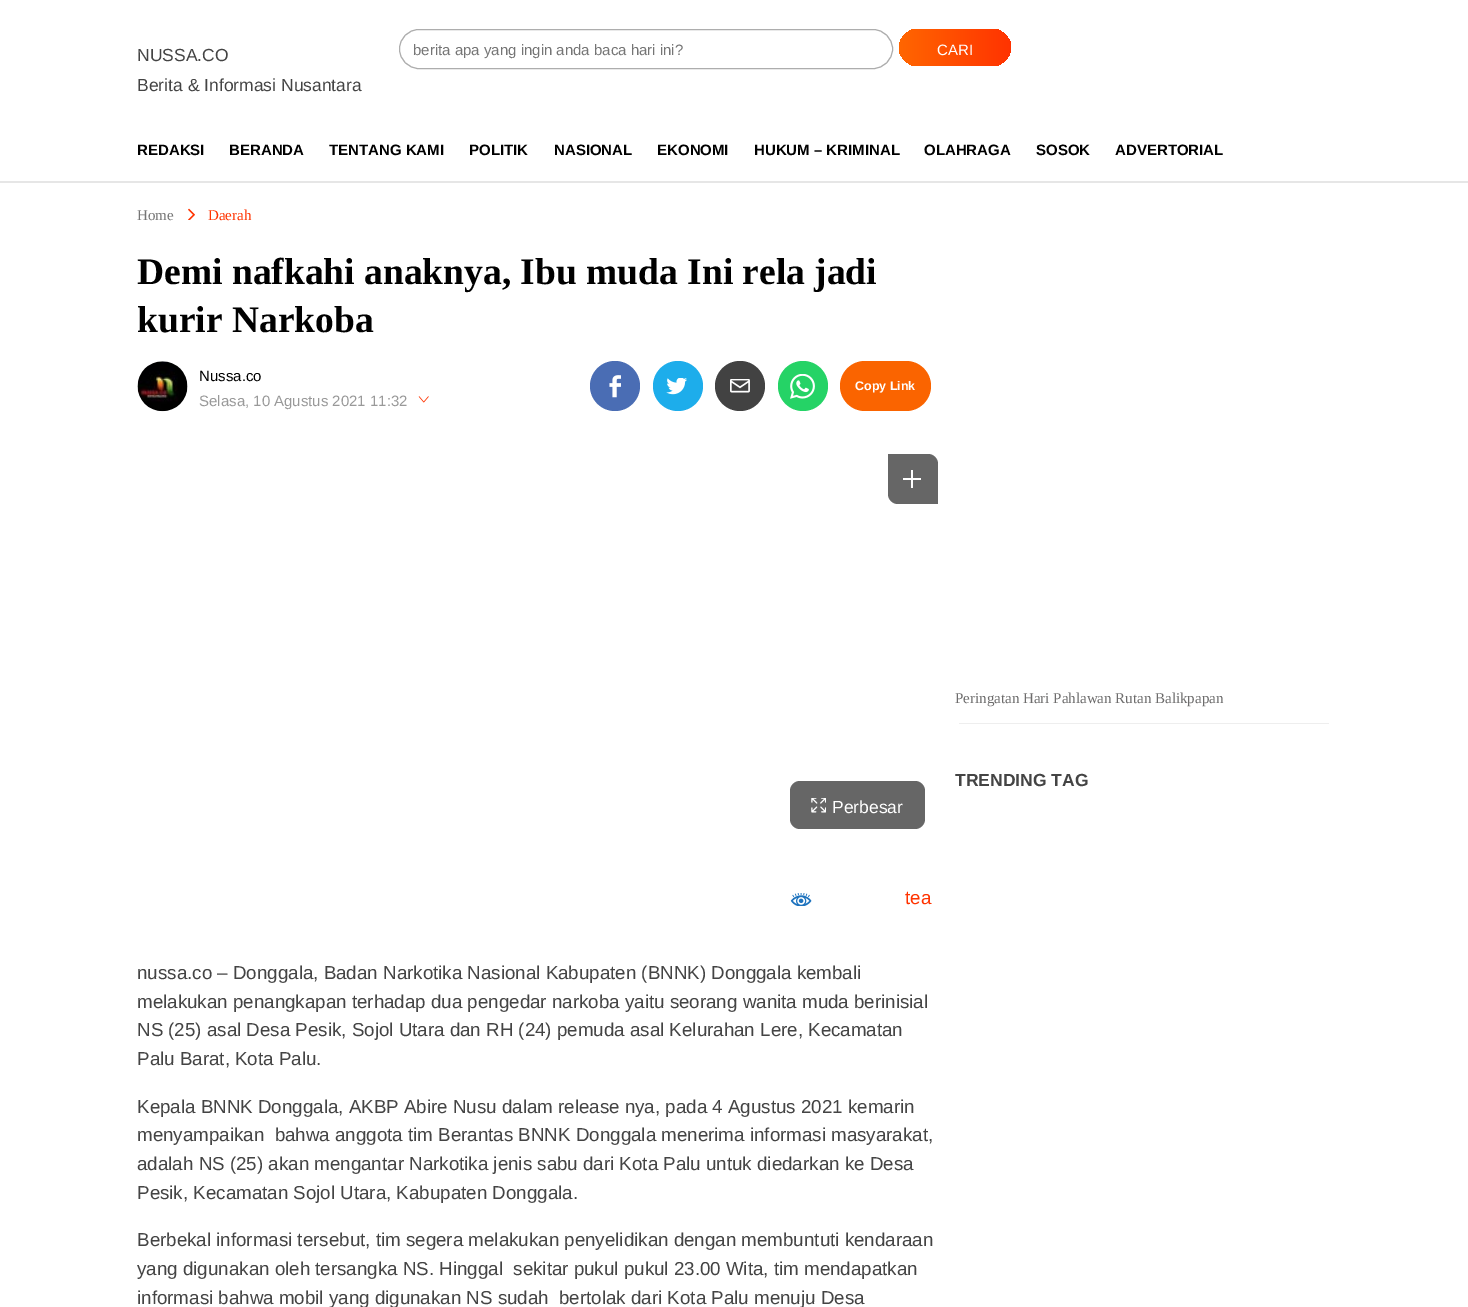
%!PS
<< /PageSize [1468 1307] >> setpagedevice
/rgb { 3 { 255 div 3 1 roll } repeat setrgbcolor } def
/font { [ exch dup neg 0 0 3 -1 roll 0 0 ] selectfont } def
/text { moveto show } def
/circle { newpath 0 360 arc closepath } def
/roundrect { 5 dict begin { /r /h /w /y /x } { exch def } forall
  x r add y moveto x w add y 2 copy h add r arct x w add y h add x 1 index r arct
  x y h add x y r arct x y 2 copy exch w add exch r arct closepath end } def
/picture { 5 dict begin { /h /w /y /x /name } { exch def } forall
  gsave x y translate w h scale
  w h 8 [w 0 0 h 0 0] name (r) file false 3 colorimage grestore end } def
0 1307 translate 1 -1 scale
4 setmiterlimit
255 255 255 rgb
0 0 1468 1307 rectfill
173 173 173 rgb
399.5 29.5 493 39 19.5 roundrect stroke
gsave 899 29 112 37 18.5 roundrect clip newpath
<< /ShadingType 2 /ColorSpace /DeviceRGB /Coords [899 48 1011 48] /Extend [true true] /Function << /FunctionType 2 /Domain [0 1] /C0 [1 0.4 0] /C1 [1 0.2 0] /N 1 >> >> shfill grestore
230 230 230 rgb
0 181 moveto 0 2 rlineto 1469 0 rlineto 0 -63 rlineto 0 61 rlineto closepath fill
(img_01.rgb) 188 208 7 12 picture
(img_02.rgb) 137 361 51 51 picture
(img_03.rgb) 418 396 11 7 picture
74 109 180 rgb
615 386 25 circle fill
(img_04.rgb) 609 375 12 23 picture
29 173 235 rgb
678 386 25 circle fill
(img_05.rgb) 666 378 21 17 picture
66 66 66 rgb
740 386 25 circle fill
(img_06.rgb) 730 379 20 14 picture
37 211 102 rgb
803 386 25 circle fill
(img_07.rgb) 790 374 25 25 picture
250 100 0 rgb
840 361 91 50 25 roundrect fill
102 102 102 rgb
888 454 moveto 40 0 rlineto 5.5 0 10 4.5 10 10 rcurveto 0 40 rlineto -40 0 rlineto -5.5 0 -10 -4.5 -10 -10 rcurveto closepath fill
255 255 255 rgb
911 470 2 18 rectfill
903 478 18 2 rectfill
102 102 102 rgb
790 781 135 48 10 roundrect fill
(img_08.rgb) 811 798 15 15 picture
(img_09.rgb) 790 893 22 13 picture
238 238 238 rgb
959 723 370 1 rectfill
/LiberationSans-Regular 17.5 font
68 68 68 rgb
(NUSSA.CO) 137 61 text
(Berita & Informasi Nusantara) 137 91 text
/LiberationSans-Regular 15 font
117 117 117 rgb
(berita apa yang ingin anda baca hari ini?) 413 55 text
255 255 255 rgb
(CARI) 937 55 text
/LiberationSans-Bold 15 font
0 0 0 rgb
(REDAKSI) 137 155 text
(BERANDA) 229 155 text
(TENTANG KAMI) 329 155 text
(POLITIK) 469 155 text
(NASIONAL) 554 155 text
(EKONOMI) 657 155 text
(HUKUM – KRIMINAL) 754 155 text
(OLAHRAGA) 924 155 text
(SOSOK) 1036 155 text
(ADVERTORIAL) 1115 155 text
/LiberationSerif-Regular 15 font
117 117 117 rgb
(Home) 137 220 text
255 51 0 rgb
(Daerah) 208 220 text
/LiberationSerif-Bold 37.5 font
0 0 0 rgb
(Demi nafkahi anaknya, Ibu muda Ini rela jadi) 137 284 text
(kurir Narkoba) 137 332 text
/LiberationSans-Regular 15 font
(Nussa.co) 199 381 text
153 153 153 rgb
(Selasa, 10 Agustus 2021 11:32) 199 406 text
/LiberationSans-Bold 12.5 font
255 255 255 rgb
(Copy Link) 855 390 text
/LiberationSans-Regular 17.5 font
(Perbesar) 832 813 text
/LiberationSans-Regular 18.75 font
255 51 0 rgb
(tea) 905 904 text
68 68 68 rgb
(nussa.co – Donggala, Badan Narkotika Nasional Kabupaten \(BNNK\) Donggala kembali) 137 979 text
(melakukan penangkapan terhadap dua pengedar narkoba yaitu seorang wanita muda berinisial) 137 1008 text
(NS \(25\) asal Desa Pesik, Sojol Utara dan RH \(24\) pemuda asal Kelurahan Lere, Kecamatan) 137 1036 text
(Palu Barat, Kota Palu.) 137 1065 text
(Kepala BNNK Donggala, AKBP Abire Nusu dalam release nya, pada 4 Agustus 2021 kemarin) 137 1113 text
(menyampaikan  bahwa anggota tim Berantas BNNK Donggala menerima informasi masyarakat,) 137 1141 text
(adalah NS \(25\) akan mengantar Narkotika jenis sabu dari Kota Palu untuk diedarkan ke Desa) 137 1170 text
(Pesik, Kecamatan Sojol Utara, Kabupaten Donggala.) 137 1199 text
(Berbekal informasi tersebut, tim segera melakukan penyelidikan dengan membuntuti kendaraan) 137 1246 text
(yang digunakan oleh tersangka NS. Hinggal  sekitar pukul pukul 23.00 Wita, tim mendapatkan) 137 1275 text
(informasi bahwa mobil yang digunakan NS sudah  bertolak dari Kota Palu menuju Desa) 137 1304 text
/LiberationSerif-Regular 15 font
109 108 108 rgb
(Peringatan Hari Pahlawan Rutan Balikpapan) 955 703 text
/LiberationSans-Bold 17.5 font
68 68 68 rgb
(TRENDING TAG) 955 786 text
showpage
